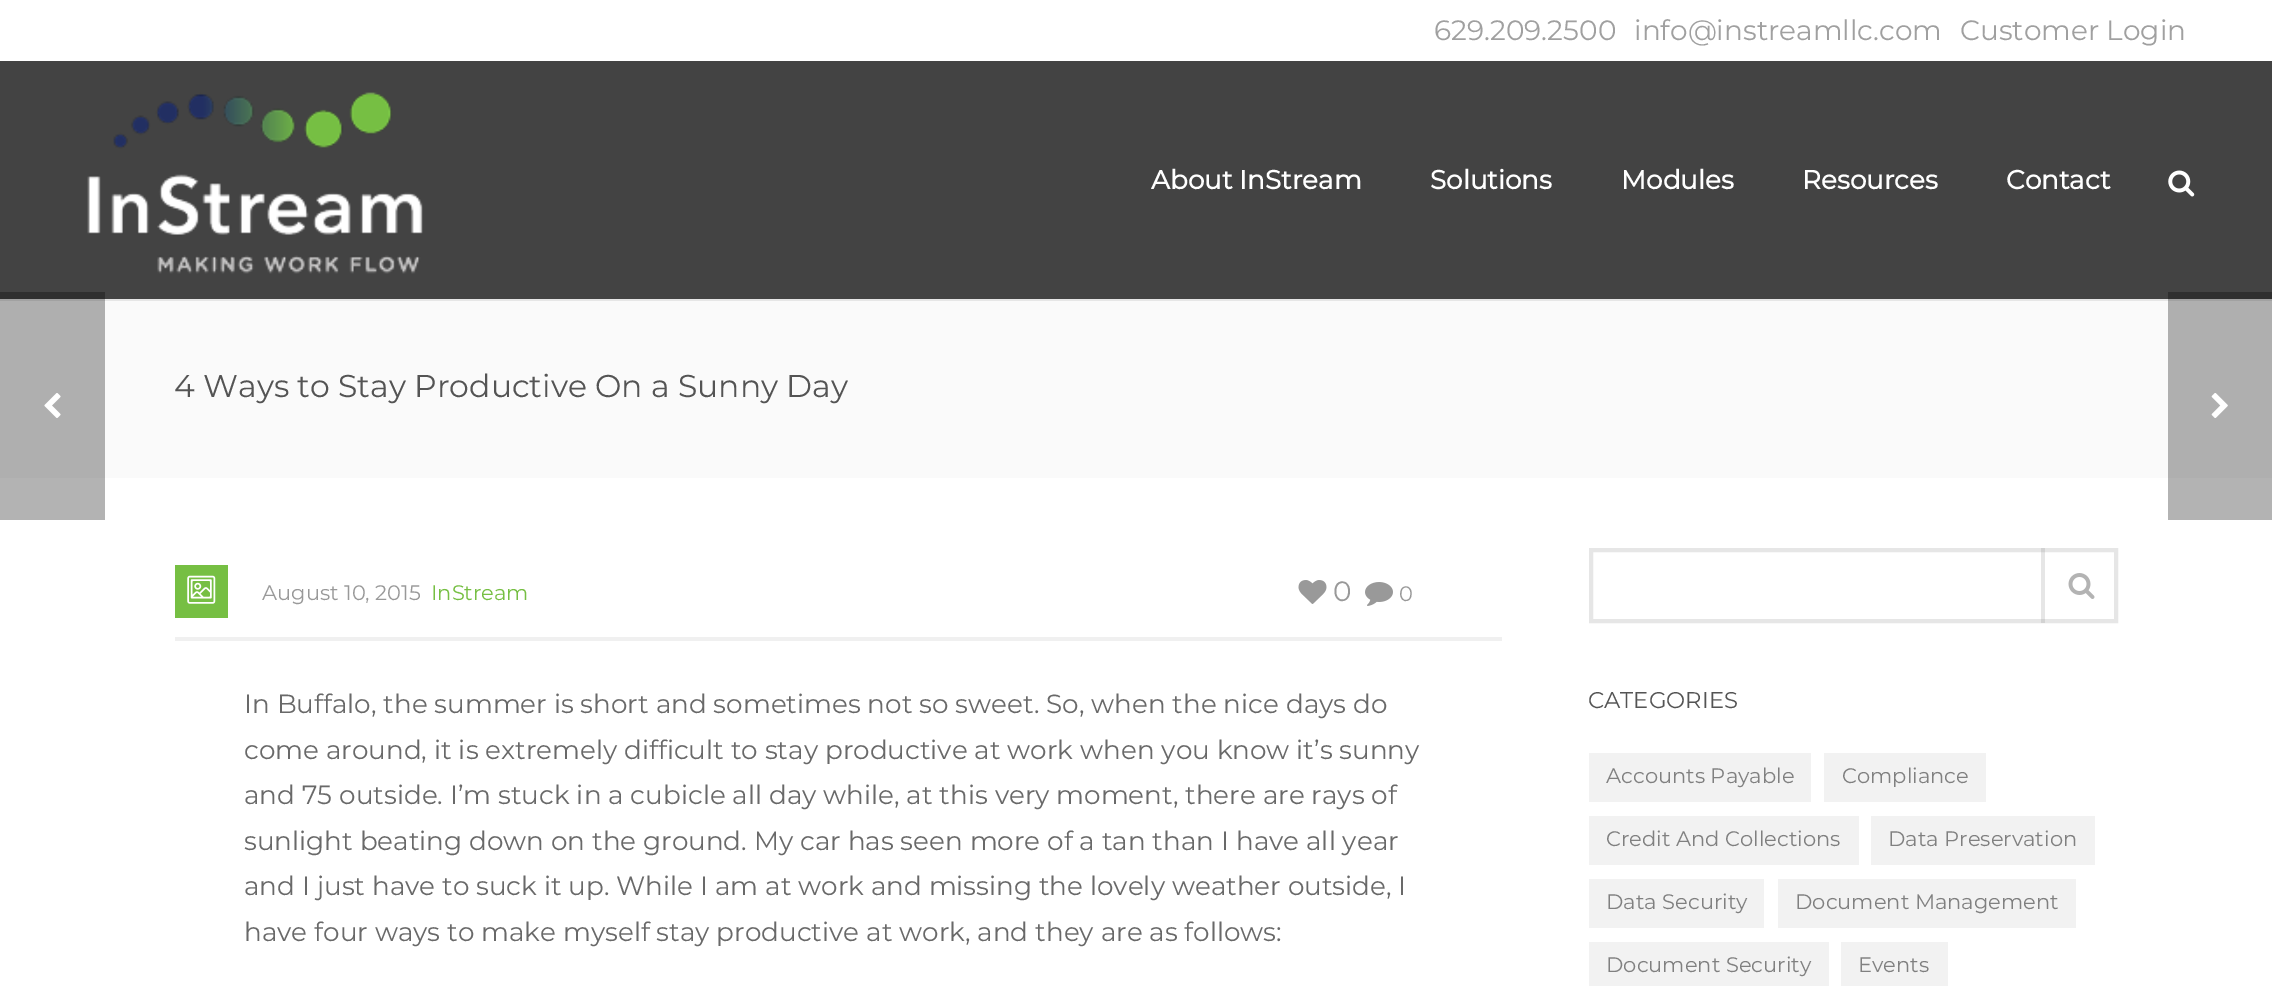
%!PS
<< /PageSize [2272 986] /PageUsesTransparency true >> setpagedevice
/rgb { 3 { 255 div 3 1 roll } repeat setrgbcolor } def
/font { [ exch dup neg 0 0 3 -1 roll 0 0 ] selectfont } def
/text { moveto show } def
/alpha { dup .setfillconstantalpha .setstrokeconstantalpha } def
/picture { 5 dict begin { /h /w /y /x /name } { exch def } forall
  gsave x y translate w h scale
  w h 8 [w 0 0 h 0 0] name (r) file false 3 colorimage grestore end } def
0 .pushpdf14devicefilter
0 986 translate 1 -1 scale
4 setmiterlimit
255 255 255 rgb
0 0 2272 986 rectfill
179 179 179 rgb
2168 478 104 42 rectfill
0 478 105 42 rectfill
175 175 175 rgb
0 301 105 177 rectfill
(img_01.rgb) 44 393 17 25 picture
67 67 67 rgb
0 61 2272 238 rectfill
47 47 47 rgb
2168 292 104 7 rectfill
0 292 105 7 rectfill
230 230 230 rgb
105 299 2063 2 rectfill
161 161 161 rgb
2168 299 104 2 rectfill
0 299 105 2 rectfill
(img_02.rgb) 87 92 336 182 picture
(img_03.rgb) 2168 170 27 27 picture
250 250 250 rgb
105 301 2063 177 rectfill
175 175 175 rgb
2168 301 104 177 rectfill
118 191 67 rgb
175 565 53 53 rectfill
(img_04.rgb) 187 575 29 29 picture
(img_05.rgb) 1298 580 29 24 picture
(img_06.rgb) 1365 582 28 24 picture
240 240 240 rgb
175 637 1327 4 rectfill
230 230 230 rgb
4 setlinewidth
1591 550 525 71 rectstroke
0.2 alpha
128 128 128 rgb
2041 548 4 75 rectfill
1 alpha
(img_07.rgb) 2068 573 27 26 picture
242 242 242 rgb
1589 753 222 49 rectfill
1824 753 162 49 rectfill
1589 816 270 49 rectfill
1871 816 224 49 rectfill
1589 879 175 49 rectfill
1778 879 298 49 rectfill
1589 942 240 44 rectfill
1841 942 107 44 rectfill
(img_08.rgb) 2211 393 17 25 picture
/Montserrat-Thin 28 font
160 160 160 rgb
(629.209.2500) 1434 40 text
(info@instreamllc.com) 1634 40 text
(Customer Login) 1960 40 text
/Montserrat-Bold 26.25 font
255 255 255 rgb
(About InStream) 1151 189 text
(Solutions) 1430 189 text
(Modules) 1621 189 text
(Resources) 1802 189 text
(Contact) 2006 189 text
/Montserrat-Thin 31.5 font
84 84 84 rgb
(4 Ways to Stay Productive On a Sunny Day) 174 397 text
/Montserrat-Thin 21 font
153 153 153 rgb
(August 10, 2015) 262 600 text
118 191 67 rgb
(InStream) 431 600 text
/Montserrat-Thin 28 font
153 153 153 rgb
(0) 1333 601 text
/Montserrat-Thin 21 font
(0) 1399 601 text
/Montserrat-Thin 26.25 font
105 105 105 rgb
(In Buffalo, the summer is short and sometimes not so sweet. So, when the nice days do) 244 713 text
(come around, it is extremely difficult to stay productive at work when you know it’s sunny) 244 759 text
(and 75 outside. I’m stuck in a cubicle all day while, at this very moment, there are rays of) 244 804 text
(sunlight beating down on the ground. My car has seen more of a tan than I have all year) 244 850 text
(and I just have to suck it up. While I am at work and missing the lovely weather outside, I) 244 895 text
(have four ways to make myself stay productive at work, and they are as follows:) 244 941 text
/Montserrat-Thin 22.75 font
84 84 84 rgb
(CATEGORIES) 1588 708 text
/Montserrat-Thin 21 font
128 128 128 rgb
(Accounts Payable) 1606 783 text
(Compliance) 1842 783 text
(Credit And Collections) 1606 846 text
(Data Preservation) 1888 846 text
(Data Security) 1606 909 text
(Document Management) 1795 909 text
(Document Security) 1606 972 text
(Events) 1858 972 text
.poppdf14devicefilter showpage
